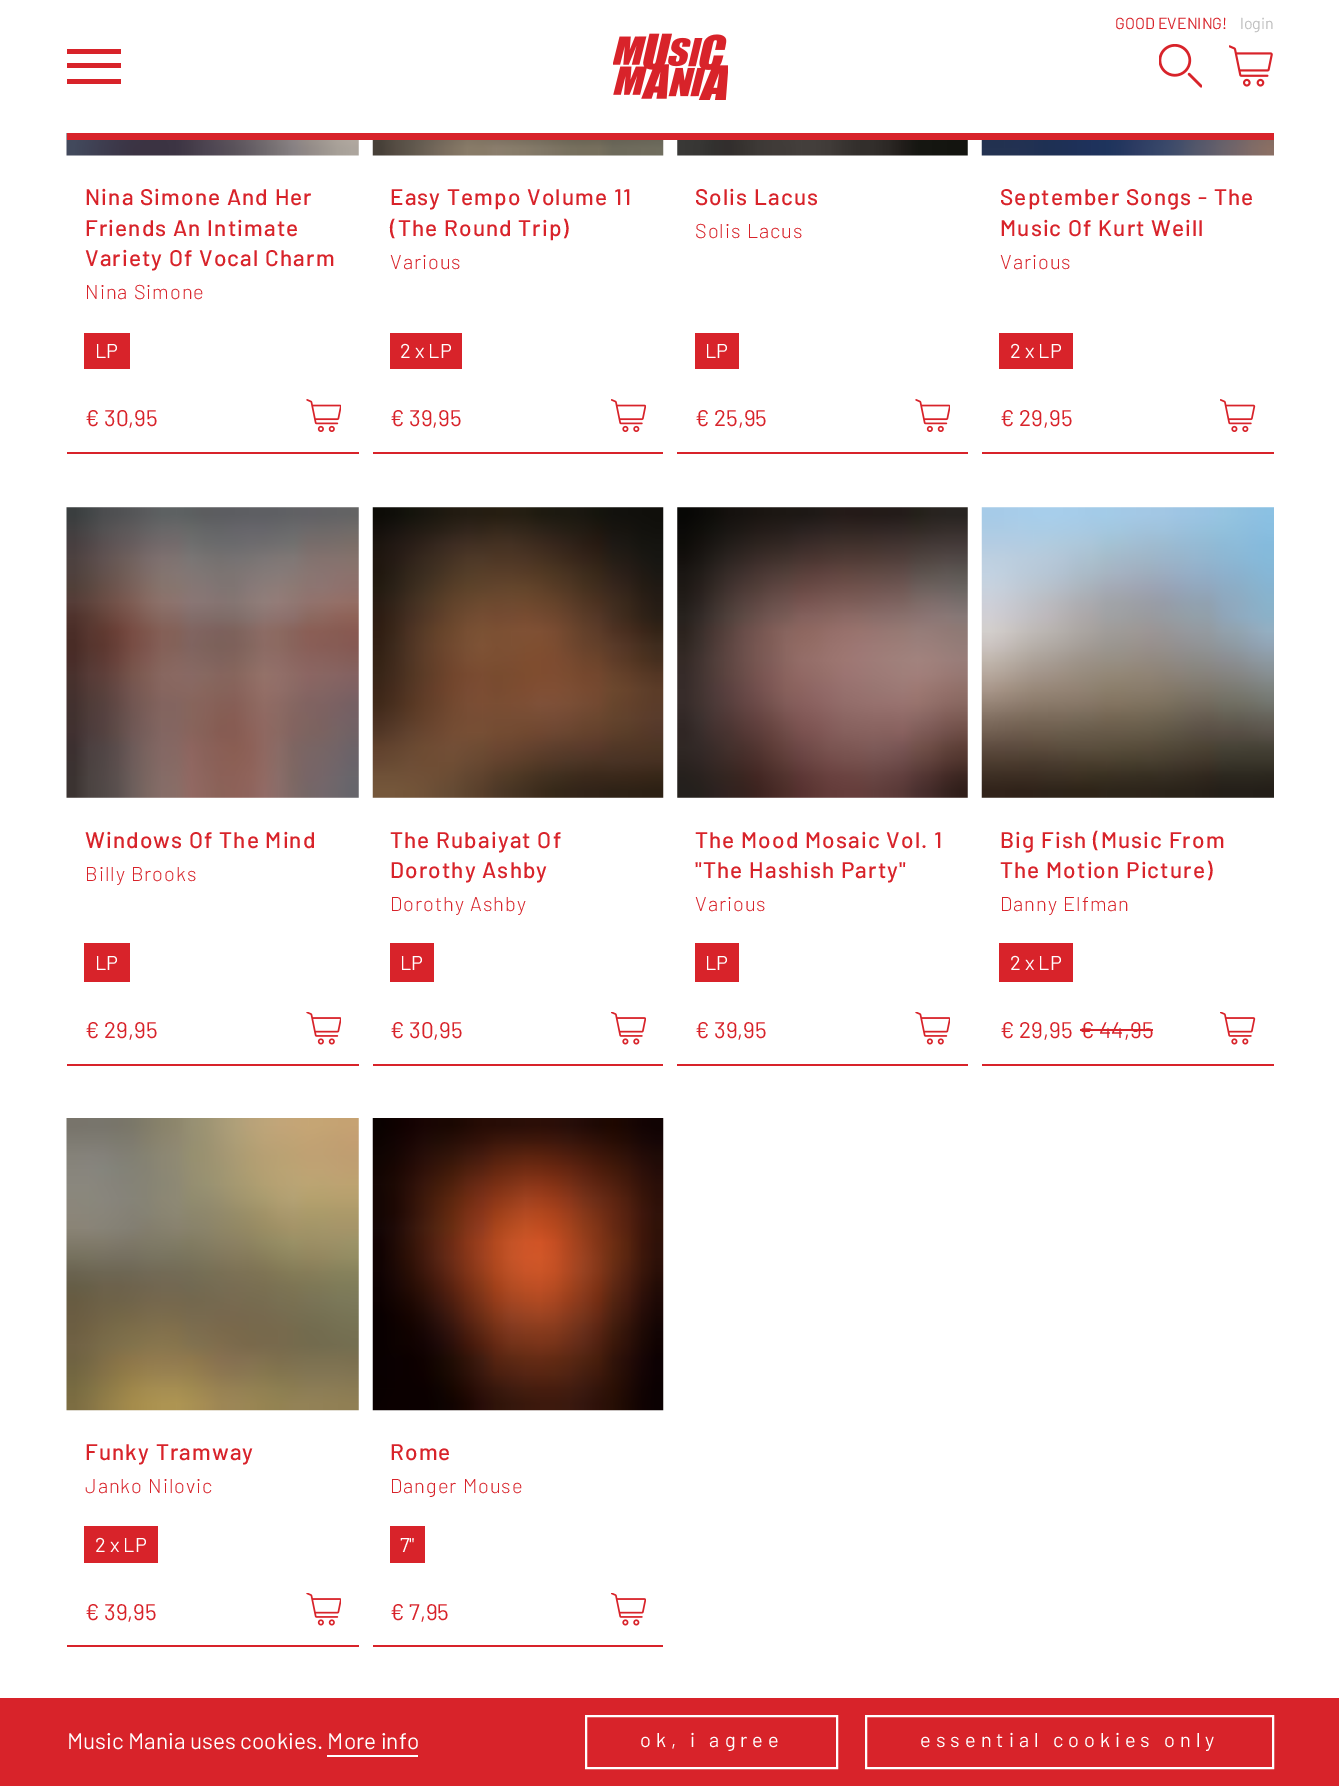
%!PS
<< /PageSize [1339 1786] >> setpagedevice
/rgb { 3 { 255 div 3 1 roll } repeat setrgbcolor } def
/font { [ exch dup neg 0 0 3 -1 roll 0 0 ] selectfont } def
/text { moveto show } def
/picture { 5 dict begin { /h /w /y /x /name } { exch def } forall
  gsave x y translate w h scale
  w h 8 [w 0 0 h 0 0] name (r) file false 3 colorimage grestore end } def
0 1786 translate 1 -1 scale
4 setmiterlimit
255 255 255 rgb
0 0 1339 1786 rectfill
(img_01.rgb) 613 33 115 67 picture
216 35 42 rgb
67 49 54 5 rectfill
67 79 54 5 rectfill
67 63 54 5 rectfill
(img_02.rgb) 1159 44 43 44 picture
(img_03.rgb) 1229 45 44 42 picture
(img_04.rgb) 66 133 293 23 picture
67 133 1207 7 rectfill
67 452 292 2 rectfill
84 333 46 36 rectfill
(img_05.rgb) 306 399 35 33 picture
(img_06.rgb) 372 140 292 16 picture
373 452 290 2 rectfill
390 333 72 36 rectfill
(img_07.rgb) 611 399 35 33 picture
(img_08.rgb) 677 140 291 16 picture
677 452 291 2 rectfill
695 333 44 36 rectfill
(img_05.rgb) 915 399 35 33 picture
(img_09.rgb) 981 140 293 16 picture
982 452 292 2 rectfill
999 333 74 36 rectfill
(img_10.rgb) 1220 399 36 33 picture
(img_11.rgb) 66 507 293 291 picture
67 1064 292 2 rectfill
84 943 46 39 rectfill
(img_12.rgb) 306 1012 35 33 picture
(img_13.rgb) 372 507 292 291 picture
373 1064 290 2 rectfill
390 943 44 39 rectfill
(img_14.rgb) 611 1012 35 33 picture
(img_15.rgb) 677 507 291 291 picture
677 1064 291 2 rectfill
695 943 44 39 rectfill
(img_12.rgb) 915 1012 35 33 picture
(img_16.rgb) 981 507 293 291 picture
982 1064 292 2 rectfill
999 943 74 39 rectfill
1080 1029 73 2 rectfill
(img_17.rgb) 1220 1012 36 33 picture
(img_18.rgb) 66 1118 293 293 picture
67 1645 292 2 rectfill
84 1526 74 37 rectfill
(img_12.rgb) 306 1593 35 33 picture
(img_19.rgb) 372 1118 292 293 picture
373 1645 290 2 rectfill
390 1526 35 37 rectfill
(img_14.rgb) 611 1593 35 33 picture
0 1698 1339 88 rectfill
255 255 255 rgb
327 1755 91 2 rectfill
2 setlinewidth
586 1716 251 52 rectstroke
866 1716 407 52 rectstroke
/Barlow-Regular 16 font
216 35 42 rgb
(GOOD EVENING!) 1115 29 text
192 192 192 rgb
(login) 1240 29 text
/Barlow-Medium 22.6 font
216 35 42 rgb
85 205 moveto 1.1 0 (Nina Simone And Her) ashow
85 236 moveto 1.1 0 (Friends An Intimate) ashow
85 266 moveto 1.1 0 (Variety Of Vocal Charm) ashow
/Barlow-Light 20 font
85 299 moveto 1 0 (Nina Simone) ashow
/Barlow-Regular 20 font
255 255 255 rgb
(LP) 95 358 text
/Barlow-Regular 22.6 font
216 35 42 rgb
(€ 30,95) 85 426 text
/Barlow-Medium 22.6 font
390 205 moveto 1.1 0 (Easy Tempo Volume 11) ashow
390 236 moveto 1.1 0 (\(The Round Trip\)) ashow
/Barlow-Light 20 font
390 269 moveto 1 0 (Various) ashow
/Barlow-Regular 20 font
255 255 255 rgb
(2 x LP) 400 358 text
/Barlow-Regular 22.6 font
216 35 42 rgb
(€ 39,95) 390 426 text
/Barlow-Medium 22.6 font
695 205 moveto 1.1 0 (Solis Lacus) ashow
/Barlow-Light 20 font
695 238 moveto 1 0 (Solis Lacus) ashow
/Barlow-Regular 20 font
255 255 255 rgb
(LP) 705 358 text
/Barlow-Regular 22.6 font
216 35 42 rgb
(€ 25,95) 695 426 text
/Barlow-Medium 22.6 font
1000 205 moveto 1.1 0 (September Songs - The) ashow
1000 236 moveto 1.1 0 (Music Of Kurt Weill) ashow
/Barlow-Light 20 font
1000 269 moveto 1 0 (Various) ashow
/Barlow-Regular 20 font
255 255 255 rgb
(2 x LP) 1010 358 text
/Barlow-Regular 22.6 font
216 35 42 rgb
(€ 29,95) 1000 426 text
/Barlow-Medium 22.6 font
85 848 moveto 1.1 0 (Windows Of The Mind) ashow
/Barlow-Light 20 font
85 881 moveto 1 0 (Billy Brooks) ashow
/Barlow-Regular 20 font
255 255 255 rgb
(LP) 95 970 text
/Barlow-Regular 22.6 font
216 35 42 rgb
(€ 29,95) 85 1038 text
/Barlow-Medium 22.6 font
390 848 moveto 1.1 0 (The Rubaiyat Of) ashow
390 878 moveto 1.1 0 (Dorothy Ashby) ashow
/Barlow-Light 20 font
390 911 moveto 1 0 (Dorothy Ashby) ashow
/Barlow-Regular 20 font
255 255 255 rgb
(LP) 400 970 text
/Barlow-Regular 22.6 font
216 35 42 rgb
(€ 30,95) 390 1038 text
/Barlow-Medium 22.6 font
695 848 moveto 1.1 0 (The Mood Mosaic Vol. 1) ashow
695 878 moveto 1.1 0 ("The Hashish Party") ashow
/Barlow-Light 20 font
695 911 moveto 1 0 (Various) ashow
/Barlow-Regular 20 font
255 255 255 rgb
(LP) 705 970 text
/Barlow-Regular 22.6 font
216 35 42 rgb
(€ 39,95) 695 1038 text
/Barlow-Medium 22.6 font
1000 848 moveto 1.1 0 (Big Fish \(Music From) ashow
1000 878 moveto 1.1 0 (The Motion Picture\)) ashow
/Barlow-Light 20 font
1000 911 moveto 1 0 (Danny Elfman) ashow
/Barlow-Regular 20 font
255 255 255 rgb
(2 x LP) 1010 970 text
/Barlow-Regular 22.6 font
216 35 42 rgb
(€ 29,95) 1000 1038 text
(€ 44,95) 1080 1038 text
/Barlow-Medium 22.6 font
85 1460 moveto 1.1 0 (Funky Tramway) ashow
/Barlow-Light 20 font
85 1493 moveto 1 0 (Janko Nilovic) ashow
/Barlow-Regular 20 font
255 255 255 rgb
(2 x LP) 95 1552 text
/Barlow-Regular 22.6 font
216 35 42 rgb
(€ 39,95) 85 1620 text
/Barlow-Medium 22.6 font
390 1460 moveto 1.1 0 (Rome) ashow
/Barlow-Light 20 font
390 1493 moveto 1 0 (Danger Mouse) ashow
/Barlow-Regular 20 font
255 255 255 rgb
(7") 400 1552 text
/Barlow-Regular 22.6 font
216 35 42 rgb
(€ 7,95) 390 1620 text
255 255 255 rgb
(Music Mania uses cookies. More info) 67 1749 text
/Barlow-Regular 20 font
640 1747 moveto 5 0 (ok, i agree) ashow
920 1747 moveto 5 0 (essential cookies only) ashow
showpage
